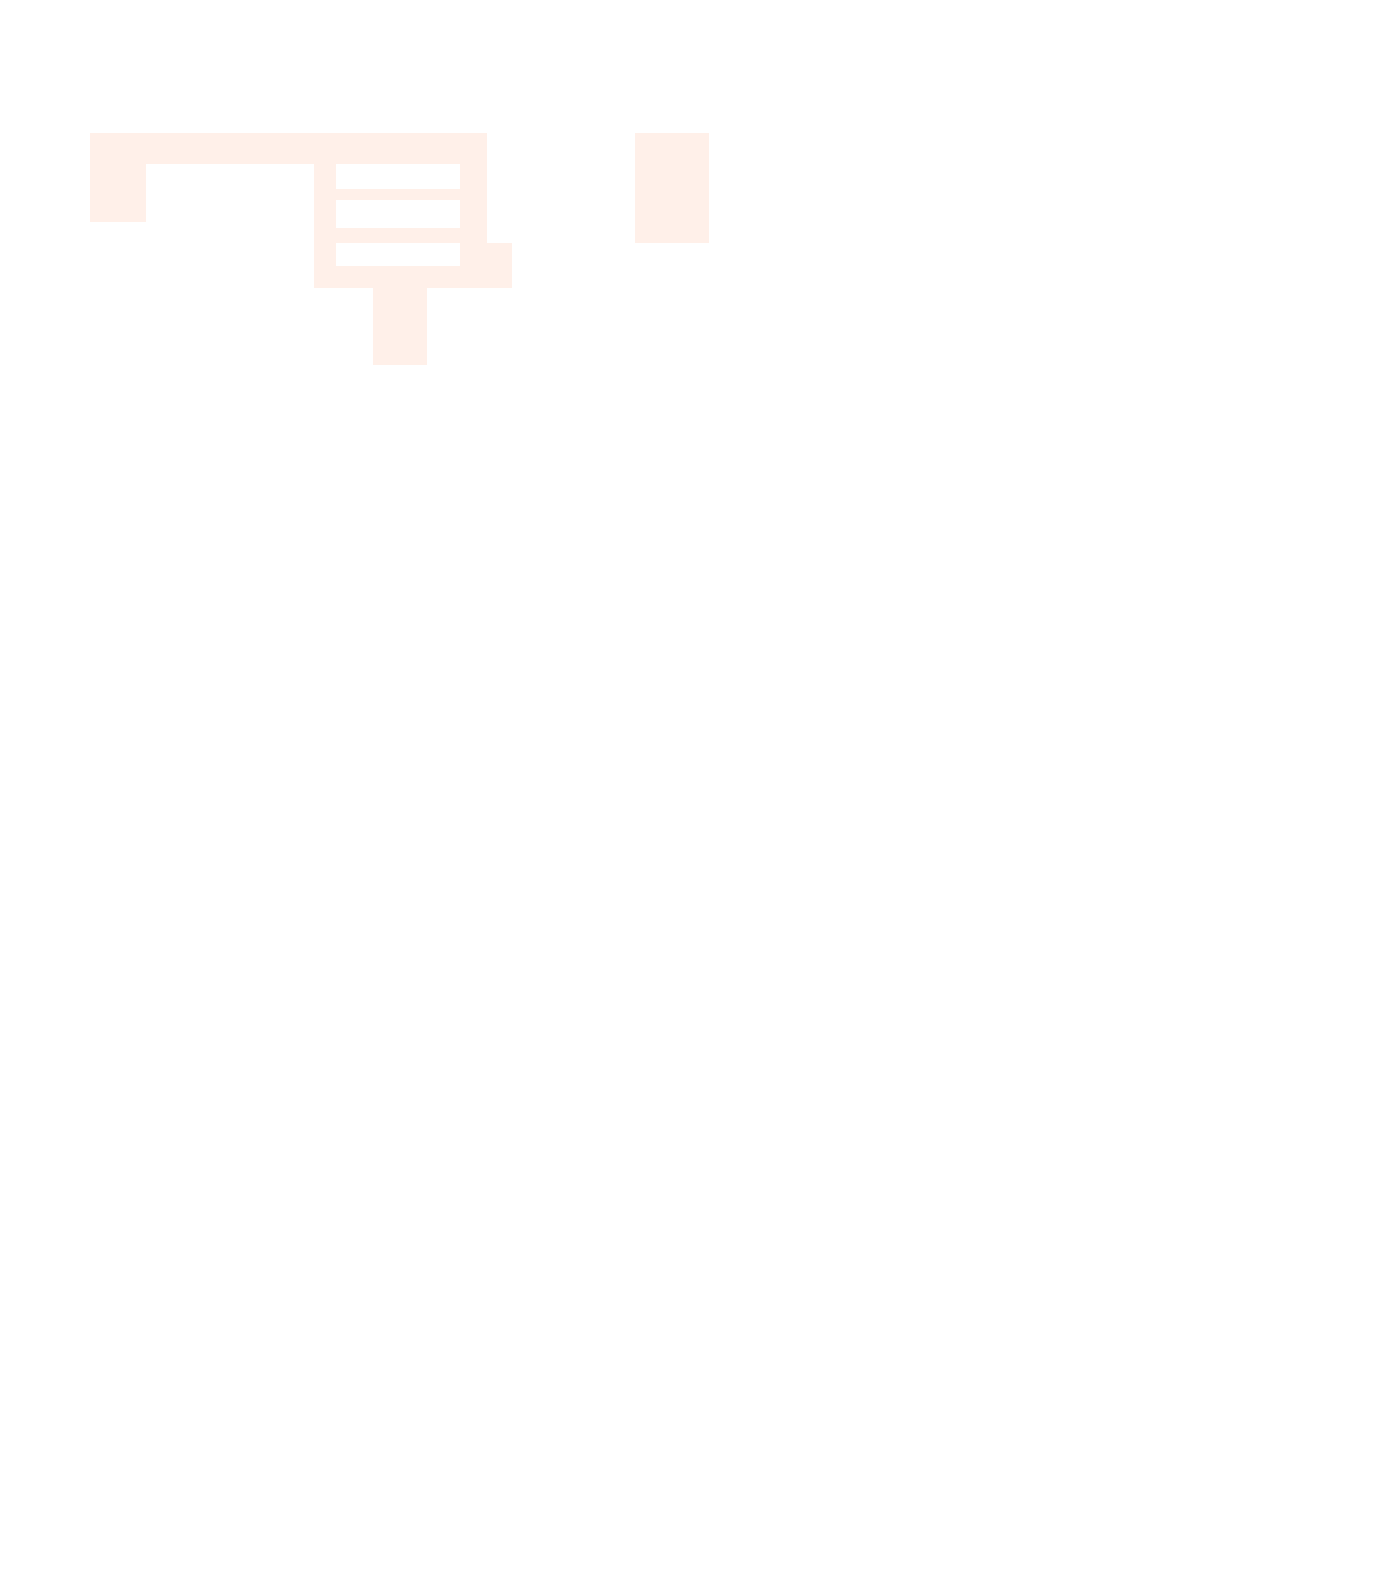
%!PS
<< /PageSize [1394 1579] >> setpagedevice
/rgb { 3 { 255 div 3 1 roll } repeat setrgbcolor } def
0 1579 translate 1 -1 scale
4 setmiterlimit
255 255 255 rgb
0 0 1394 1579 rectfill
255 240 233 rgb
90 133 397 31 rectfill
635 133 74 110 rectfill
90 164 56 58 rectfill
314 164 22 124 rectfill
460 164 27 124 rectfill
336 189 124 11 rectfill
336 228 124 15 rectfill
336 266 124 22 rectfill
487 243 25 45 rectfill
373 288 54 77 rectfill
showpage
